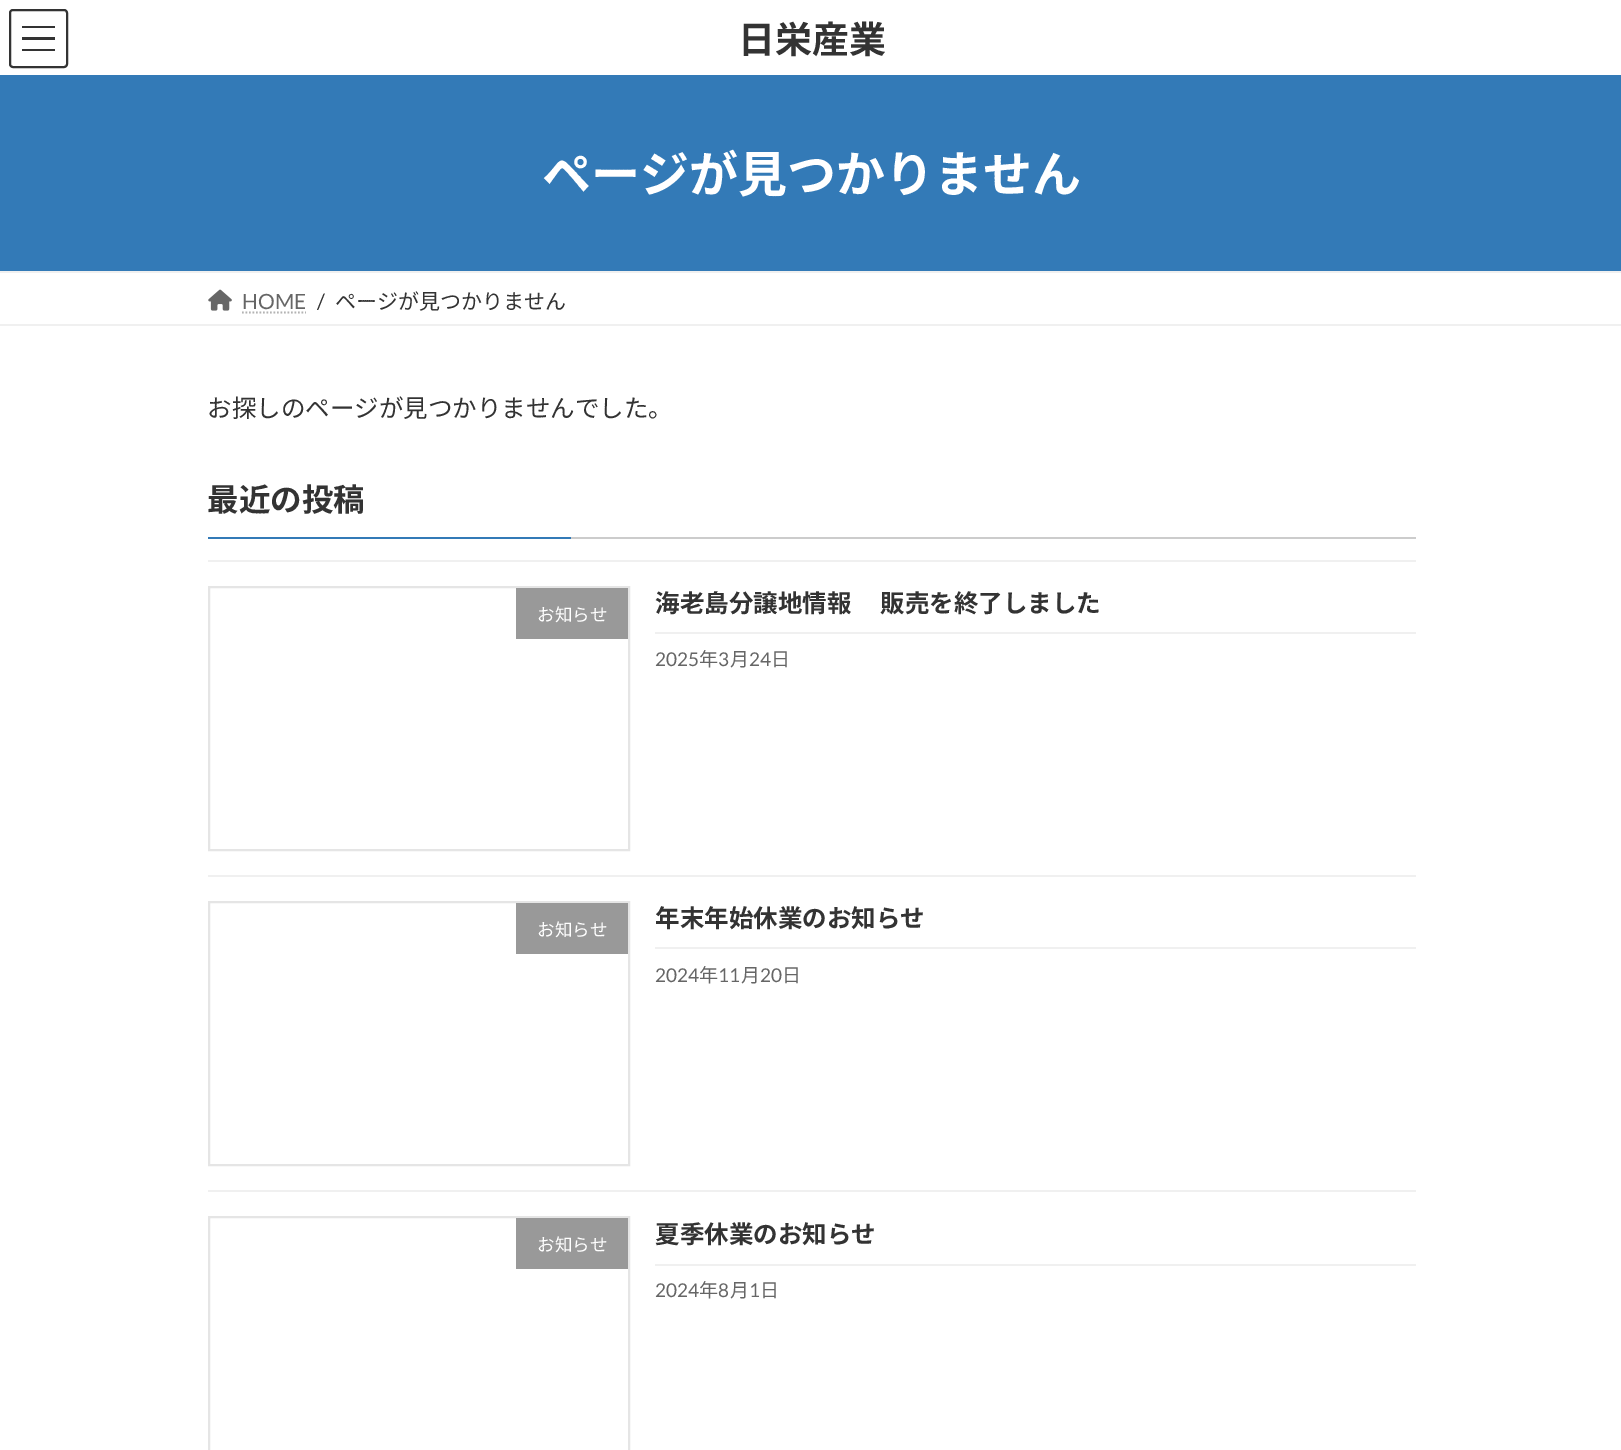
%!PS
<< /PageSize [1621 1450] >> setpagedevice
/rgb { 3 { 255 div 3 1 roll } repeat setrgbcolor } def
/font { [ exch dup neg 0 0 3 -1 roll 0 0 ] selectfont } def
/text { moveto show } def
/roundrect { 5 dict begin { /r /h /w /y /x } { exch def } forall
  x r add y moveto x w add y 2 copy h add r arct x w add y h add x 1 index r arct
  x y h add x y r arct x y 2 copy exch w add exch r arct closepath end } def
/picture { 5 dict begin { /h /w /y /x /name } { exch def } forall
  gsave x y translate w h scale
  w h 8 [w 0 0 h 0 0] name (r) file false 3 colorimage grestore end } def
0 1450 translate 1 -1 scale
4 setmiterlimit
255 255 255 rgb
0 0 1621 1450 rectfill
51 51 51 rgb
22 26 33 2 rectfill
22 37 33 3 rectfill
22 49 33 2 rectfill
2 setlinewidth
10 10 57 57 3 roundrect stroke
51 122 183 rgb
0 75 1621 196 rectfill
240 240 240 rgb
0 271 1621 2 rectfill
0 324 1621 2 rectfill
(img_01.rgb) 208 289 24 22 picture
179 179 179 rgb
1.8 setlinewidth
[1.75 1.75] 0 setdash
242 312.5 moveto 64 0 rlineto stroke
204 204 204 rgb
571 537 845 2 rectfill
51 122 183 rgb
208 537 363 2 rectfill
240 240 240 rgb
208 560 1208 2 rectfill
208 875 1208 2 rectfill
229 229 229 rgb
2 setlinewidth
[] 0 setdash
209 587 420 263 rectstroke
153 153 153 rgb
516 588 112 51 rectfill
240 240 240 rgb
655 632 761 2 rectfill
208 1190 1208 2 rectfill
229 229 229 rgb
209 902 420 263 rectstroke
153 153 153 rgb
516 903 112 51 rectfill
240 240 240 rgb
655 947 761 2 rectfill
229 229 229 rgb
209 1217 420 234 rectstroke
153 153 153 rgb
516 1218 112 51 rectfill
240 240 240 rgb
655 1264 761 2 rectfill
/NotoSansJP-Bold 37 font
51 51 51 rgb
(日栄産業) 738 53 text
/NotoSansJP-Bold 49 font
255 255 255 rgb
(ページが見つかりません) 542 192 text
/Lato-Regular 21 font
102 102 102 rgb
(HOME) 242 309 text
51 51 51 rgb
(/) 317 309 text
/NotoSansJP-Regular 21 font
(ページが見つかりません) 335 309 text
/NotoSansJP-Regular 24.5 font
(お探しのページが見つかりませんでした。) 207 417 text
/NotoSansJP-Bold 31.5 font
(最近の投稿) 207 511 text
/NotoSansJP-Regular 17.5 font
255 255 255 rgb
(お知らせ) 537 621 text
/NotoSansJP-Bold 24.5 font
51 51 51 rgb
(海老島分譲地情報) 655 612 text
(販売を終了しました) 880 612 text
/Lato-Regular 19 font
102 102 102 rgb
(2025) 655 666 text
/NotoSansJP-Regular 19 font
(年) 699 666 text
/Lato-Regular 19 font
(3) 718 666 text
/NotoSansJP-Regular 19 font
(月) 730 666 text
/Lato-Regular 19 font
(24) 749 666 text
/NotoSansJP-Regular 19 font
(日) 771 666 text
/NotoSansJP-Regular 17.5 font
255 255 255 rgb
(お知らせ) 537 936 text
/NotoSansJP-Bold 24.5 font
51 51 51 rgb
(年末年始休業のお知らせ) 655 927 text
/Lato-Regular 19 font
102 102 102 rgb
(2024) 655 982 text
/NotoSansJP-Regular 19 font
(年) 699 982 text
/Lato-Regular 19 font
(11) 718 982 text
/NotoSansJP-Regular 19 font
(月) 741 982 text
/Lato-Regular 19 font
(20) 760 982 text
/NotoSansJP-Regular 19 font
(日) 782 982 text
/NotoSansJP-Regular 17.5 font
255 255 255 rgb
(お知らせ) 537 1251 text
/NotoSansJP-Bold 24.5 font
51 51 51 rgb
(夏季休業のお知らせ) 655 1243 text
/Lato-Regular 19 font
102 102 102 rgb
(2024) 655 1297 text
/NotoSansJP-Regular 19 font
(年) 699 1297 text
/Lato-Regular 19 font
(8) 718 1297 text
/NotoSansJP-Regular 19 font
(月) 730 1297 text
/Lato-Regular 19 font
(1) 749 1297 text
/NotoSansJP-Regular 19 font
(日) 760 1297 text
showpage
